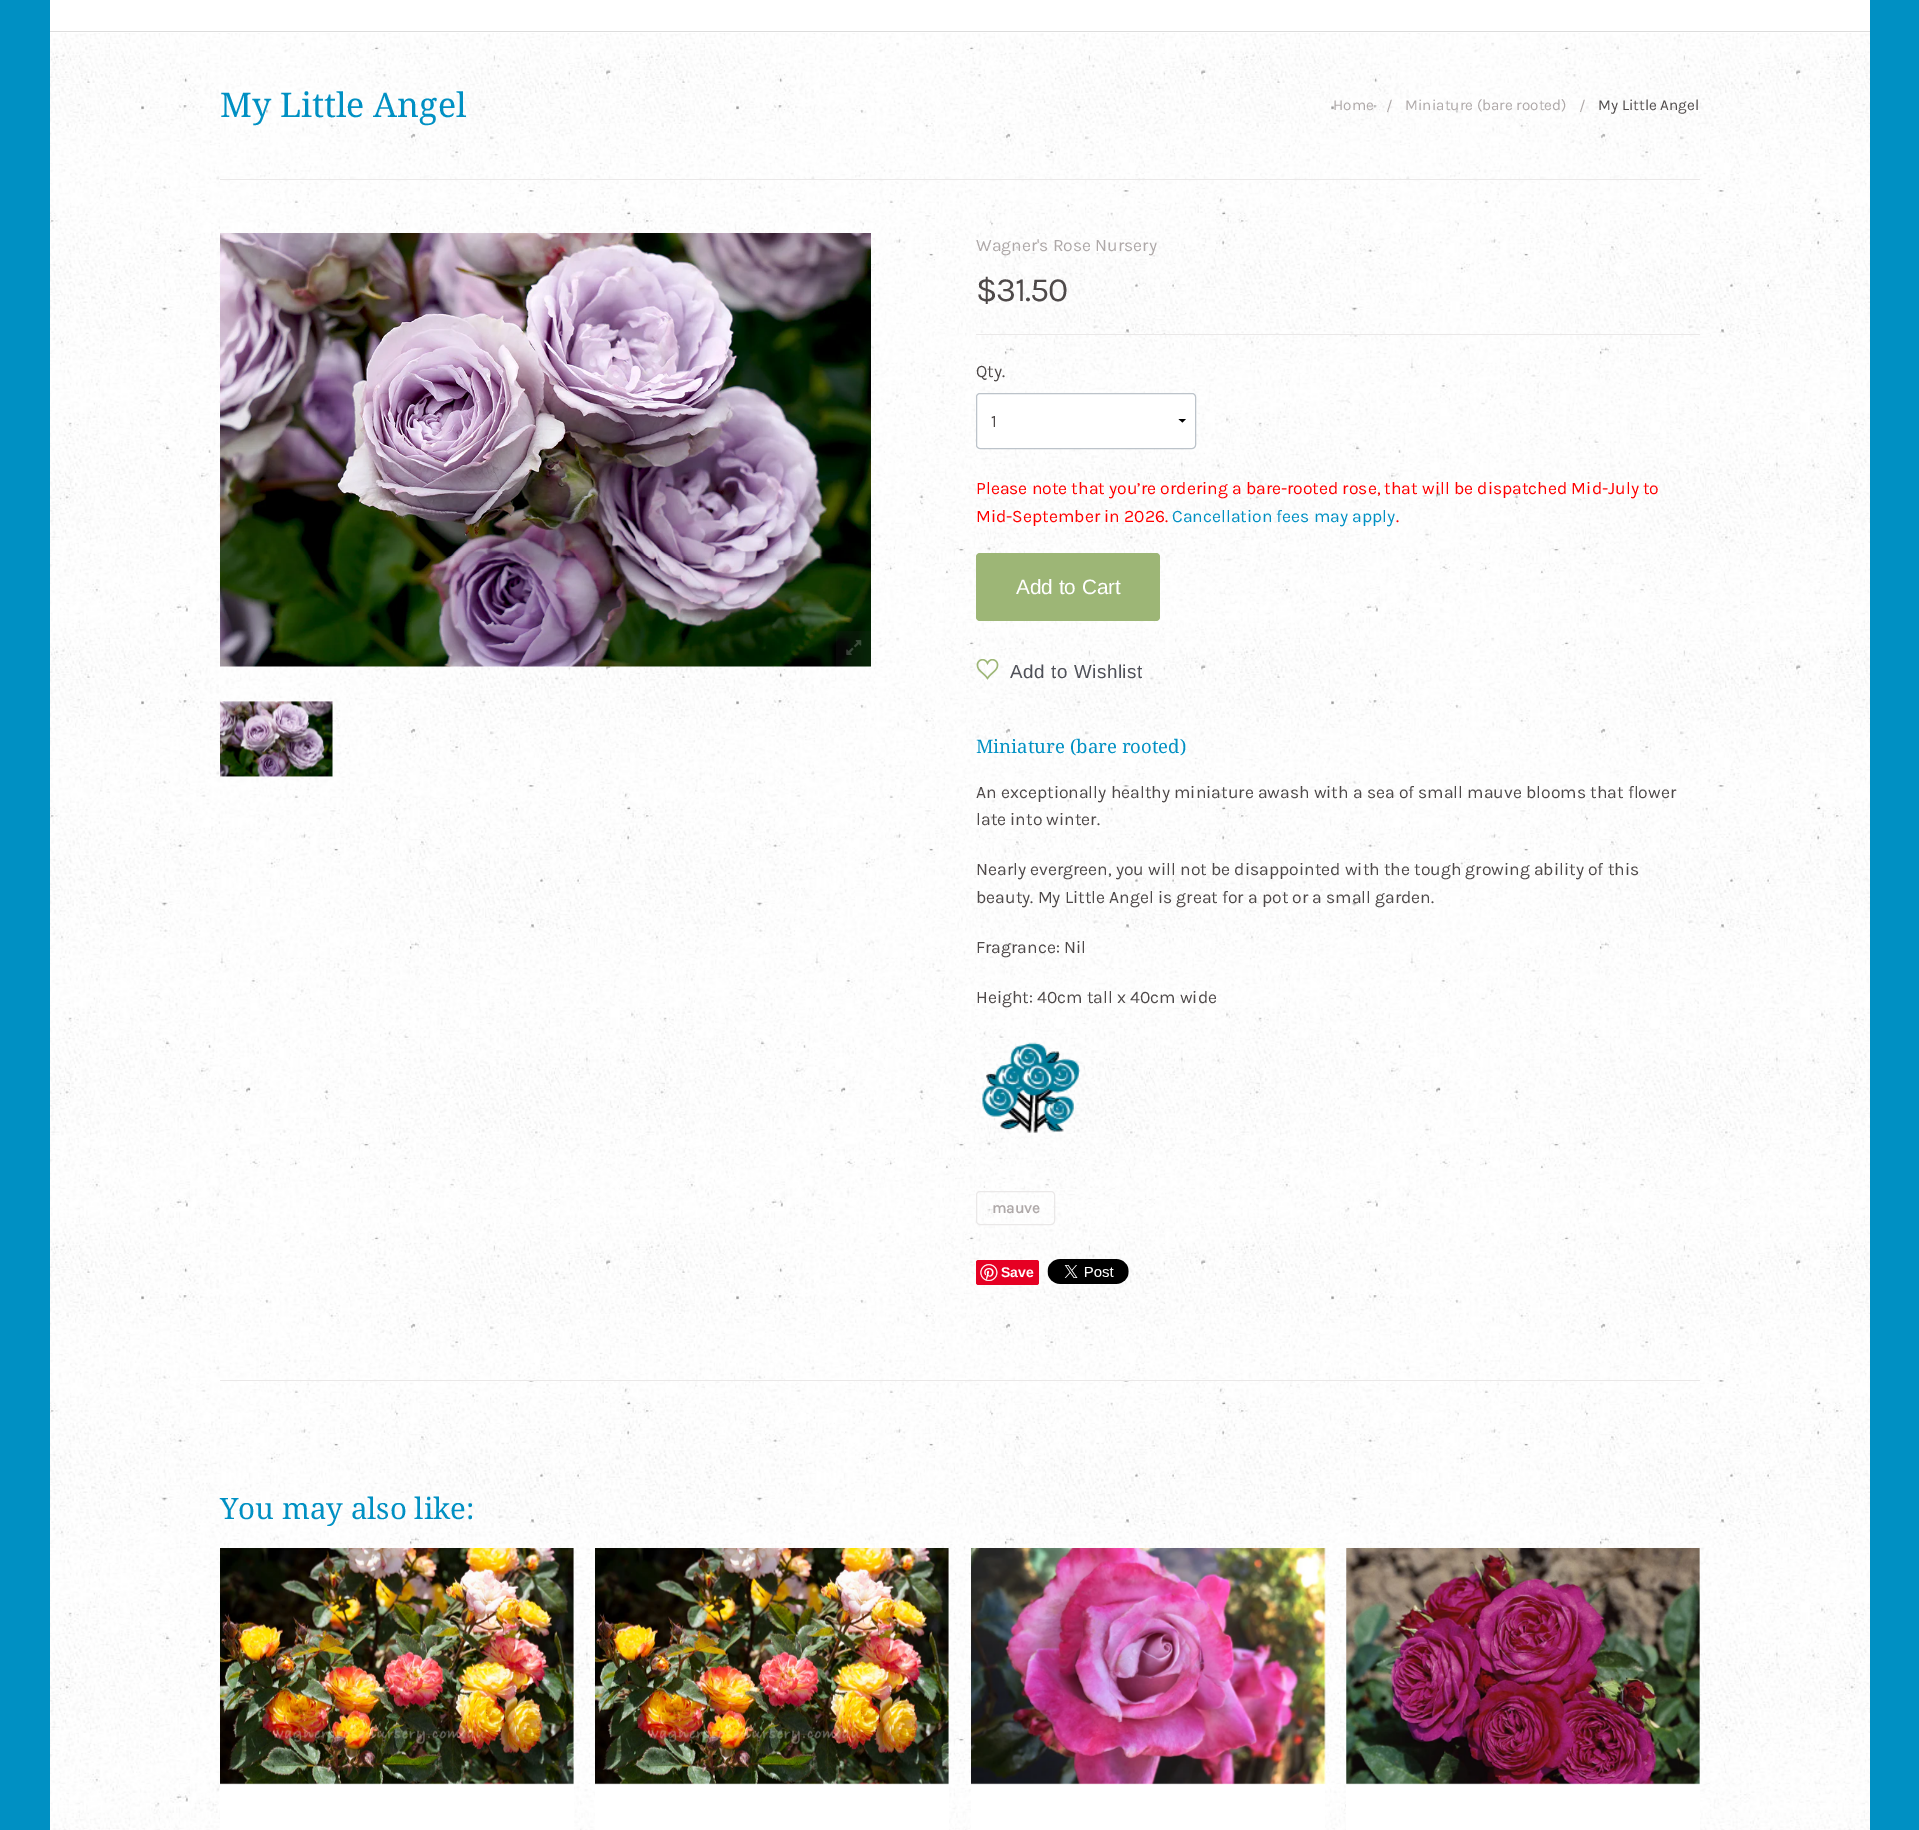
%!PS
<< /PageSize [1919 1830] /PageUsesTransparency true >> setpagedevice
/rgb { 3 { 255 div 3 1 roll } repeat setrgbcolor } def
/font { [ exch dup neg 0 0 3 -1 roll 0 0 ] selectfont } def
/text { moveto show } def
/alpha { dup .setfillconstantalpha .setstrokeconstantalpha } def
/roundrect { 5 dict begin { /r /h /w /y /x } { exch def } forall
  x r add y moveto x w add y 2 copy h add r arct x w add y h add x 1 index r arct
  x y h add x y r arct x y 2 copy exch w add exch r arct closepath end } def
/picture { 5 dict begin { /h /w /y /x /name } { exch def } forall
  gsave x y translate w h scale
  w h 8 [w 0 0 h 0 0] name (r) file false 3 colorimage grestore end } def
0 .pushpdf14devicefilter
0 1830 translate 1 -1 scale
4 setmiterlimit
0 144 195 rgb
0 0 1919 1830 rectfill
255 255 255 rgb
50 0 1820 33 rectfill
221 221 221 rgb
50 31 1820 1 rectfill
(img_01.rgb) 50 33 1820 1797 picture
234 232 232 rgb
220 179 1480 1 rectfill
(img_02.rgb) 220 233 651 434 picture
0.2 alpha
34 34 34 rgb
836 631 35 35 rectfill
1 alpha
(img_03.rgb) 846 640 16 15 picture
(img_04.rgb) 220 701 113 76 picture
234 232 232 rgb
976 334 724 1 rectfill
255 255 255 rgb
976 393 220 56 4 roundrect fill
0 0 0 rgb
1186 419 moveto -3.5 3.5 rlineto -4 -3.5 rlineto closepath fill
188 195 202 rgb
976.5 393.5 219 55 3.5 roundrect stroke
157 182 118 rgb
976 553 184 68 4 roundrect fill
(img_05.rgb) 976 659 23 21 picture
(img_06.rgb) 982 1042 98 91 picture
234 232 232 rgb
976.5 1191.5 78 33 3.5 roundrect stroke
230 0 35 rgb
976 1260 63 25 2.5 roundrect fill
(img_07.rgb) 980 1264 18 17 picture
(img_08.rgb) 1047 1259 82 25 picture
234 232 232 rgb
220 1380 1480 1 rectfill
255 255 255 rgb
220 1548 354 282 rectfill
(img_09.rgb) 220 1548 354 237 picture
595 1548 354 282 rectfill
(img_10.rgb) 595 1548 354 237 picture
971 1548 354 282 rectfill
(img_11.rgb) 971 1548 355 237 picture
1346 1548 354 282 rectfill
(img_12.rgb) 1346 1548 354 237 picture
/DroidSerif-Regular 34 font
0 144 195 rgb
(My Little Angel) 220 117 text
/Karla-Regular 15.25 font
174 168 168 rgb
(Home) 1333 110 text
(/) 1386 111 text
(Miniature \(bare rooted\)) 1405 110 text
(/) 1579 111 text
78 73 73 rgb
(My Little Angel) 1598 110 text
/Karla-Regular 17.5 font
174 168 168 rgb
(Wagner's Rose Nursery) 976 251 text
/Karla-Regular 34 font
78 73 73 rgb
976 301 moveto -1.25 0 ($31.50) ashow
/Karla-Regular 17.5 font
(Qty.) 976 377 text
(1) 991 427 text
255 0 0 rgb
(Please note that you’re ordering a bare-rooted rose, that will be dispatched Mid-July to) 976 494 text
(Mid-September in 2026.) 976 522 text
0 144 195 rgb
(Cancellation fees may apply) 1172 522 text
255 0 0 rgb
(.) 1396 522 text
/LiberationSans-Regular 20.75 font
255 255 255 rgb
(Add to Cart) 1016 594 text
/LiberationSans-Regular 18.75 font
79 81 89 rgb
1010 678 moveto 0.6 0 (Add to Wishlist) ashow
/DroidSerif-Regular 18.6 font
0 144 195 rgb
(Miniature \(bare rooted\)) 976 753 text
/Karla-Regular 17.5 font
78 73 73 rgb
(An exceptionally healthy miniature awash with a sea of small mauve blooms that flower) 976 798 text
(late into winter.) 976 825 text
(Nearly evergreen, you will not be disappointed with the tough growing ability of this) 976 875 text
(beauty. My Little Angel is great for a pot or a small garden.) 976 903 text
(Fragrance: Nil) 976 953 text
(Height: 40cm tall x 40cm wide) 976 1003 text
/Karla-Bold 15.25 font
174 168 168 rgb
(mauve) 992 1213 text
/LiberationSans-Bold 14 font
255 255 255 rgb
(Save) 1001 1277 text
/DroidSerif-Regular 29.5 font
0 144 195 rgb
(You may also like:) 220 1519 text
.poppdf14devicefilter showpage
